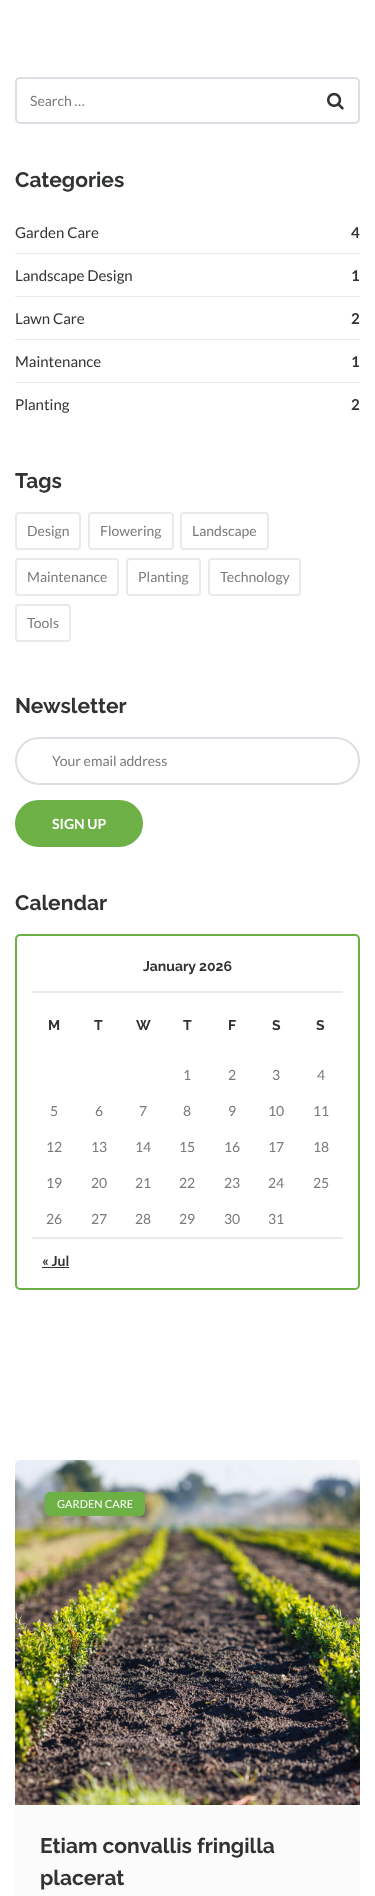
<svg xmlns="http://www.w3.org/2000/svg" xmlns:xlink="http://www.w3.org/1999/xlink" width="375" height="1896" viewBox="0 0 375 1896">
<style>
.cls-1{font:14px Lato;fill:#7a7a7a}
.cls-2{font:bold 21px Raleway;fill:#303233}
.cls-3{font:15px Lato;fill:#303233}
.cls-4{font:bold 15px Lato;fill:#303233}
.cls-5{font:bold 14px Lato;fill:#ffffff}
.cls-6{font:bold 14px Raleway;fill:#303233}
.cls-7{font:bold 14px Lato;fill:#303233}
.cls-8{font:11px Lato;fill:#ffffff}
</style>
<rect width="100%" height="100%" fill="#ffffff"/>
<rect fill="none" stroke="#dedde3" stroke-width="2" x="16" y="78" width="343" height="45" rx="4"/>
<image xlink:href="image0.png" x="327" y="92" width="17" height="18"/>
<rect fill="#eaeaea" x="15" y="253" width="345" height="1"/>
<rect fill="#eaeaea" x="15" y="296" width="345" height="1"/>
<rect fill="#eaeaea" x="15" y="339" width="345" height="1"/>
<rect fill="#eaeaea" x="15" y="382" width="345" height="1"/>
<rect fill="none" stroke="#eaeaea" stroke-width="2" x="16" y="513" width="64" height="36" rx="3"/>
<rect fill="none" stroke="#eaeaea" stroke-width="2" x="89" y="513" width="84" height="36" rx="3"/>
<rect fill="none" stroke="#eaeaea" stroke-width="2" x="181" y="513" width="87" height="36" rx="3"/>
<rect fill="none" stroke="#eaeaea" stroke-width="2" x="16" y="559" width="102" height="36" rx="3"/>
<rect fill="none" stroke="#eaeaea" stroke-width="2" x="127" y="559" width="73" height="36" rx="3"/>
<rect fill="none" stroke="#eaeaea" stroke-width="2" x="209" y="559" width="91" height="36" rx="3"/>
<rect fill="none" stroke="#eaeaea" stroke-width="2" x="16" y="605" width="54" height="36" rx="3"/>
<rect fill="none" stroke="#dedde3" stroke-width="2" x="16" y="738" width="343" height="46" rx="23"/>
<rect fill="#6db046" stroke="#6db046" stroke-width="2" x="16" y="801" width="126" height="45" rx="22.5"/>
<rect fill="none" stroke="#6db046" stroke-width="2" x="16" y="935" width="343" height="354" rx="4"/>
<rect fill="#eaeaea" x="32" y="991" width="311" height="2"/>
<rect fill="#eaeaea" x="32" y="1237" width="311" height="2"/>
<rect fill="#303233" x="42" y="1267" width="27" height="1"/>
<rect fill="#fbfbfb" x="15" y="1460" width="345" height="436"/>
<image xlink:href="image1.png" x="15" y="1460" width="345" height="345"/>
<rect fill="#6db046" x="45" y="1492" width="100" height="24" rx="5"/>
<text class="cls-1" x="30" y="106">Search …</text>
<text class="cls-2" x="15" y="187">Categories</text>
<text class="cls-3" x="15" y="238">Garden Care</text>
<text class="cls-4" x="351" y="238">4</text>
<text class="cls-3" x="15" y="281">Landscape Design</text>
<text class="cls-4" x="351" y="281">1</text>
<text class="cls-3" x="15" y="324">Lawn Care</text>
<text class="cls-4" x="351" y="324">2</text>
<text class="cls-3" x="15" y="367">Maintenance</text>
<text class="cls-4" x="351" y="367">1</text>
<text class="cls-3" x="15" y="410">Planting</text>
<text class="cls-4" x="351" y="410">2</text>
<text class="cls-2" x="15" y="488">Tags</text>
<text class="cls-1" x="27" y="536">Design</text>
<text class="cls-1" x="100" y="536">Flowering</text>
<text class="cls-1" x="192" y="536">Landscape</text>
<text class="cls-1" x="27" y="582">Maintenance</text>
<text class="cls-1" x="138" y="582">Planting</text>
<text class="cls-1" x="220" y="582">Technology</text>
<text class="cls-1" x="27" y="628">Tools</text>
<text class="cls-2" x="15" y="713">Newsletter</text>
<text class="cls-1" x="52" y="766">Your email address</text>
<text class="cls-5" x="52" y="829">SIGN UP</text>
<text class="cls-2" x="15" y="910">Calendar</text>
<text class="cls-6" x="143" y="971">January 2026</text>
<text class="cls-6" x="48" y="1030">M</text>
<text class="cls-6" x="94" y="1030">T</text>
<text class="cls-6" x="136" y="1030">W</text>
<text class="cls-6" x="183" y="1030">T</text>
<text class="cls-6" x="228" y="1030">F</text>
<text class="cls-6" x="272" y="1030">S</text>
<text class="cls-6" x="316" y="1030">S</text>
<text class="cls-1" x="183" y="1080">1</text>
<text class="cls-1" x="228" y="1080">2</text>
<text class="cls-1" x="272" y="1080">3</text>
<text class="cls-1" x="317" y="1080">4</text>
<text class="cls-1" x="50" y="1116">5</text>
<text class="cls-1" x="95" y="1116">6</text>
<text class="cls-1" x="139" y="1116">7</text>
<text class="cls-1" x="183" y="1116">8</text>
<text class="cls-1" x="228" y="1116">9</text>
<text class="cls-1" x="268" y="1116">10</text>
<text class="cls-1" x="313" y="1116">11</text>
<text class="cls-1" x="46" y="1152">12</text>
<text class="cls-1" x="91" y="1152">13</text>
<text class="cls-1" x="135" y="1152">14</text>
<text class="cls-1" x="179" y="1152">15</text>
<text class="cls-1" x="224" y="1152">16</text>
<text class="cls-1" x="268" y="1152">17</text>
<text class="cls-1" x="313" y="1152">18</text>
<text class="cls-1" x="46" y="1188">19</text>
<text class="cls-1" x="91" y="1188">20</text>
<text class="cls-1" x="135" y="1188">21</text>
<text class="cls-1" x="179" y="1188">22</text>
<text class="cls-1" x="224" y="1188">23</text>
<text class="cls-1" x="268" y="1188">24</text>
<text class="cls-1" x="313" y="1188">25</text>
<text class="cls-1" x="46" y="1224">26</text>
<text class="cls-1" x="91" y="1224">27</text>
<text class="cls-1" x="135" y="1224">28</text>
<text class="cls-1" x="179" y="1224">29</text>
<text class="cls-1" x="224" y="1224">30</text>
<text class="cls-1" x="268" y="1224">31</text>
<text class="cls-7" x="42" y="1266">« Jul</text>
<text class="cls-8" x="57" y="1508">GARDEN CARE</text>
<text class="cls-2"><tspan x="40" y="1853">Etiam convallis fringilla</tspan><tspan x="40" y="1885">placerat</tspan></text>
</svg>
